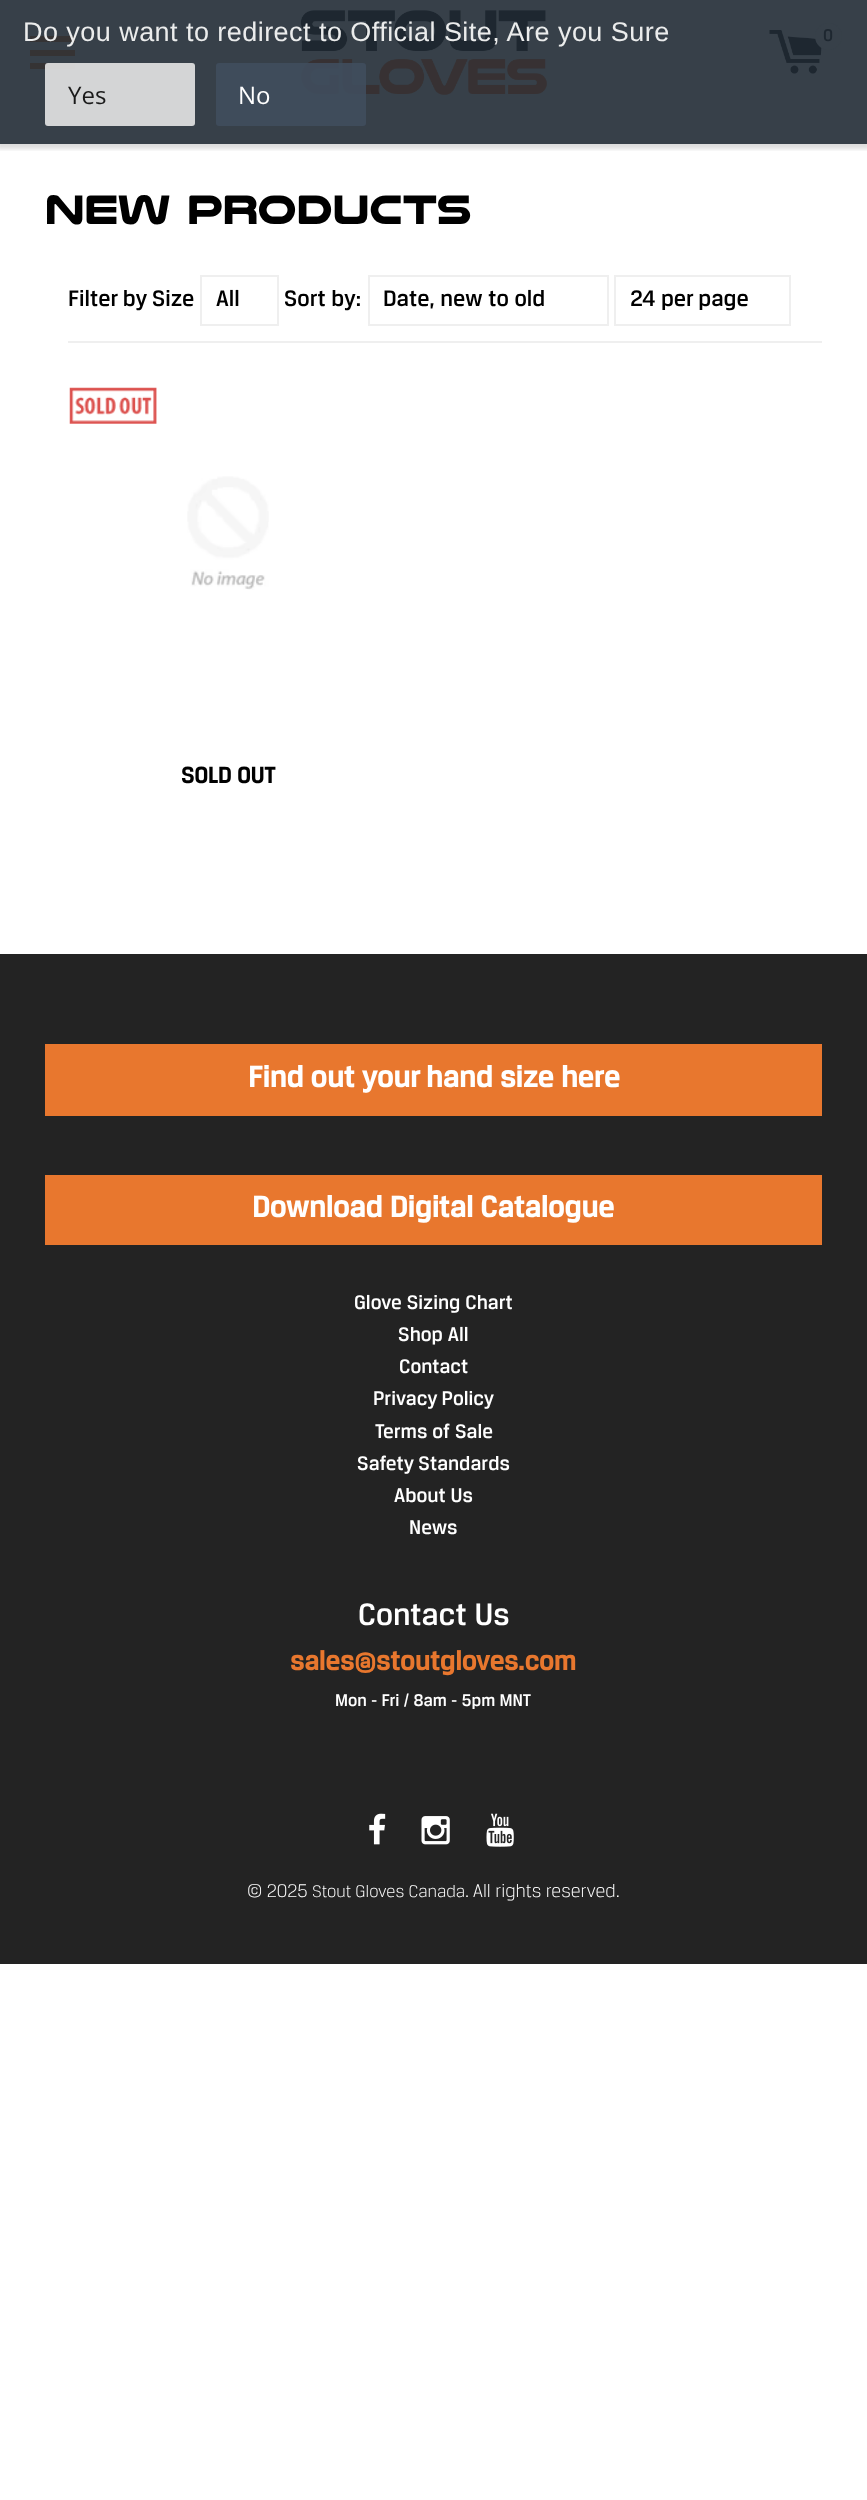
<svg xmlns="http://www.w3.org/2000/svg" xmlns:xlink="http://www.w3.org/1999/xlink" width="867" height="2500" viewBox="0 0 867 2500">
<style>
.cls-1{font:27px Liberation Sans;letter-spacing:0.45px;fill:#ebecec}
.cls-2{font:24px Open Sans;fill:#1a1a1a}
.cls-3{font:24px Open Sans;fill:#ffffff}
.cls-4{font:500 18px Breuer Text;fill:#1e2730}
.cls-5{font:bold 42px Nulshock;fill:#000000}
.cls-6{font:500 24px Breuer Text;fill:#000000}
.cls-7{font:bold 24px Breuer Text;fill:#000000}
.cls-8{font:bold 31.5px Breuer Text;fill:#ffffff}
.cls-9{font:500 21px Breuer Text;fill:#ffffff}
.cls-10{font:500 33px Breuer Text;fill:#ffffff}
.cls-11{font:bold 28.5px Breuer Text;fill:#e8772e}
.cls-12{font:500 18px Breuer Text;fill:#ffffff}
.cls-13{font:300 19.5px Breuer Text;fill:#ffffff}
.cls-14{font:300 18px Breuer Text;fill:#ffffff}
</style>
<defs>
<clipPath id="clip1"><rect x="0" y="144" width="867" height="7"/></clipPath>
</defs>
<rect width="100%" height="100%" fill="#ffffff"/>
<rect fill="#374049" x="0" y="0" width="867" height="144"/>
<rect fill="#353334" x="30" y="36" width="45" height="6"/>
<rect fill="#353334" x="30" y="50" width="45" height="6"/>
<rect fill="#353334" x="30" y="63" width="45" height="6"/>
<image xlink:href="image0.png" x="300" y="10" width="247" height="85"/>
<image xlink:href="image1.png" x="769" y="30" width="53" height="44"/>
<circle fill="#374049" cx="828.5" cy="36.5" r="13.5"/>
<g clip-path="url(#clip1)">
<rect fill="#1a1a1a" fill-opacity="0.15" filter="blur(2px)" x="-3" y="-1" width="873" height="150"/>
</g>
<rect fill="#e5e5e5" fill-opacity="0.9" x="45" y="63" width="150" height="63" rx="3"/>
<rect fill="#404e5d" fill-opacity="0.9" x="216" y="63" width="150" height="63" rx="3"/>
<rect fill="#efefef" x="68" y="341" width="754" height="2"/>
<rect fill="none" stroke="#efefef" stroke-width="2" x="201" y="276" width="77" height="49"/>
<rect fill="none" stroke="#efefef" stroke-width="2" x="369" y="276" width="239" height="49"/>
<rect fill="none" stroke="#efefef" stroke-width="2" x="615" y="276" width="175" height="49"/>
<image xlink:href="image2.png" x="69" y="387" width="88" height="37"/>
<image xlink:href="image3.png" x="187" y="476" width="82" height="114"/>
<rect fill="#232323" x="0" y="954" width="867" height="1010"/>
<rect fill="#e8772e" x="45" y="1044" width="777" height="72"/>
<rect fill="#e8772e" x="45" y="1175" width="777" height="70"/>
<image xlink:href="image4.png" x="369" y="1813" width="17" height="32"/>
<image xlink:href="image5.png" x="421" y="1816" width="29" height="29"/>
<image xlink:href="image6.png" x="486" y="1813" width="28" height="34"/>
<text class="cls-1" x="23" y="41">Do you want to redirect to Official Site, Are you Sure</text>
<text class="cls-2" x="68" y="104">Yes</text>
<text class="cls-3" x="238" y="104">No</text>
<text class="cls-4" x="823" y="41">0</text>
<text class="cls-5" x="45" y="224">New products</text>
<text class="cls-6" x="68" y="306">Filter by Size</text>
<text class="cls-6" x="216" y="306">All</text>
<text class="cls-6" x="284" y="306">Sort by:</text>
<text class="cls-6" x="383" y="306">Date, new to old</text>
<text class="cls-6" x="630" y="306">24 per page</text>
<text class="cls-7" x="181" y="783">SOLD OUT</text>
<text class="cls-8" x="248" y="1087">Find out your hand size here</text>
<text class="cls-8" x="252" y="1217">Download Digital Catalogue</text>
<text class="cls-9" x="354" y="1309">Glove Sizing Chart</text>
<text class="cls-9" x="398" y="1341">Shop All</text>
<text class="cls-9" x="399" y="1373">Contact</text>
<text class="cls-9" x="373" y="1405">Privacy Policy</text>
<text class="cls-9" x="375" y="1438">Terms of Sale</text>
<text class="cls-9" x="357" y="1470">Safety Standards</text>
<text class="cls-9" x="394" y="1502">About Us</text>
<text class="cls-9" x="409" y="1534">News</text>
<text class="cls-10" x="358" y="1625">Contact Us</text>
<text class="cls-11" x="290" y="1670">sales@stoutgloves.com</text>
<text class="cls-12" x="335" y="1706">Mon - Fri / 8am - 5pm MNT</text>
<text class="cls-13" x="247" y="1897">© 2025</text>
<text class="cls-14" x="312" y="1897">Stout Gloves Canada</text>
<text class="cls-13" x="465" y="1897">. All rights reserved.</text>
</svg>
